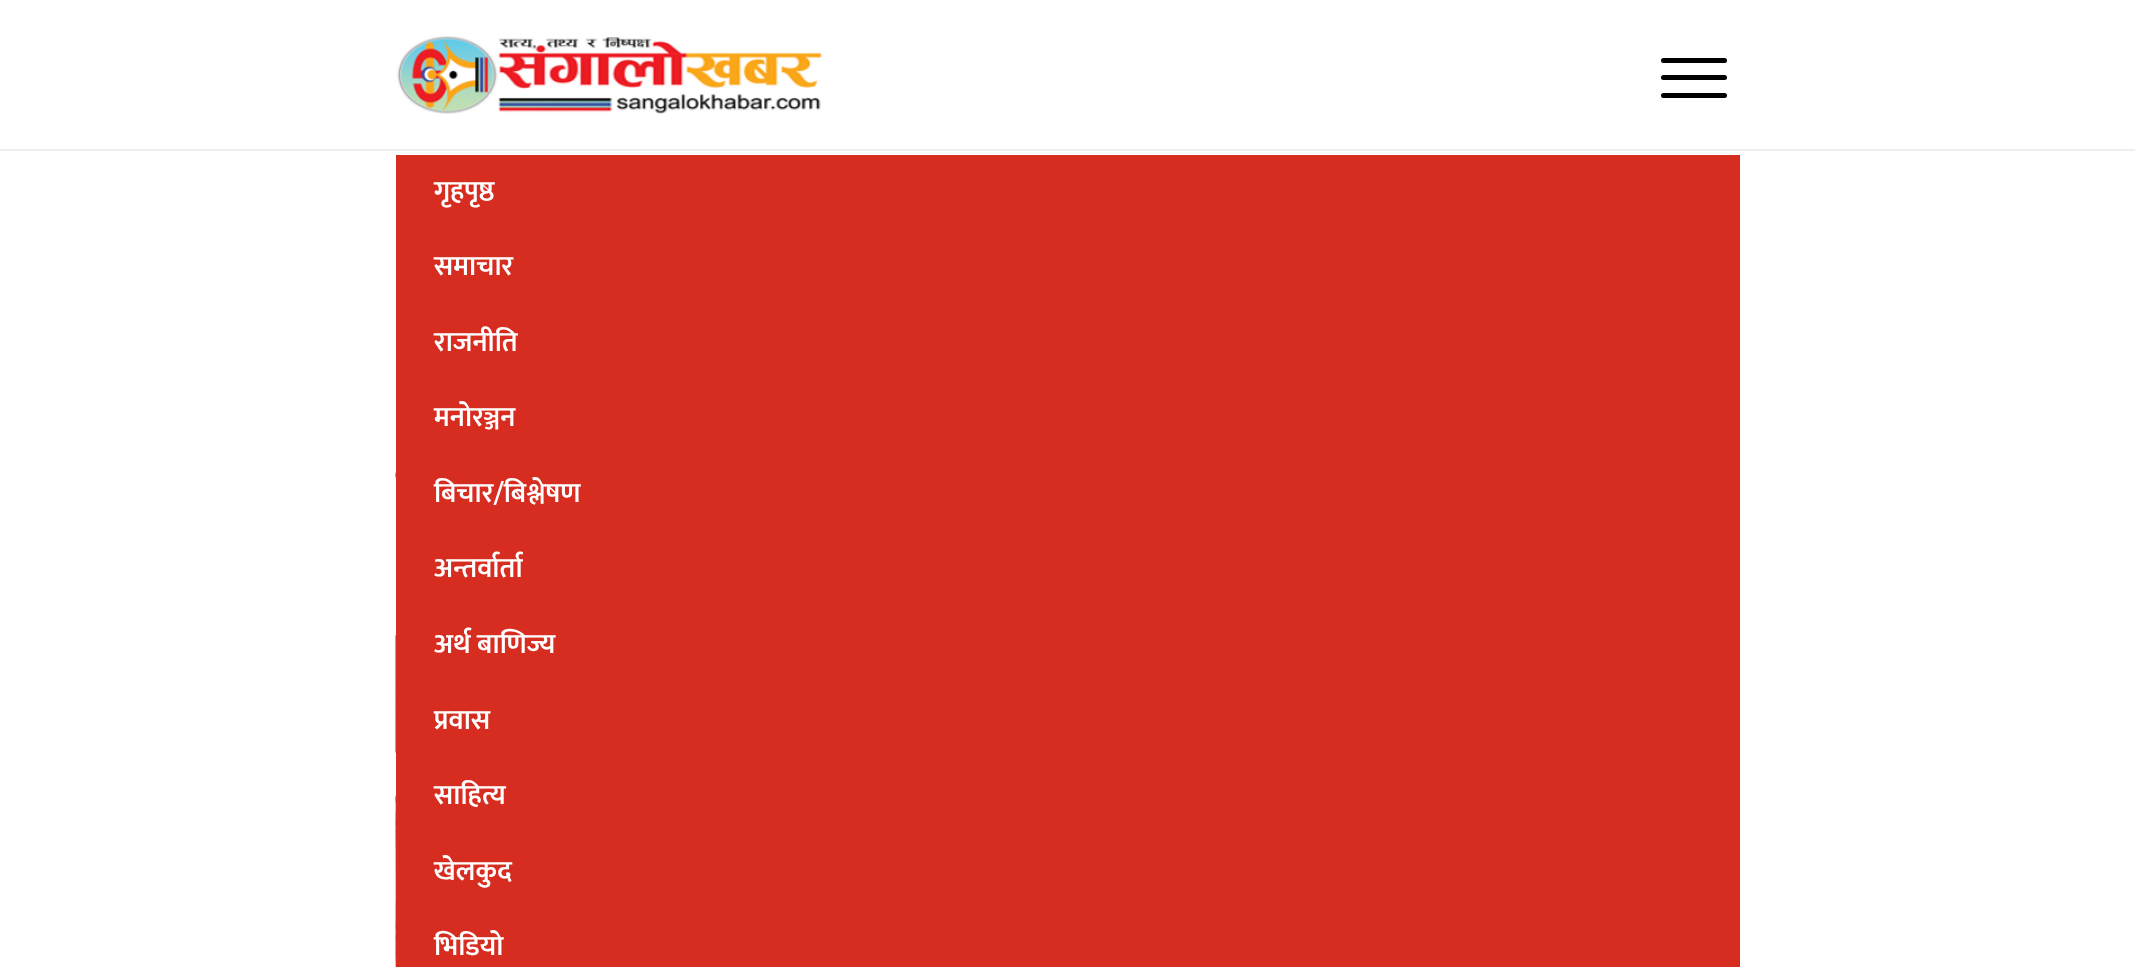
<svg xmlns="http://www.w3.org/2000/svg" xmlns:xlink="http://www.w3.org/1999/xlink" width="2135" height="967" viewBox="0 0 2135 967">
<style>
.cls-1{font:600 28px Ek Mukta;fill:#ffffff}
</style>
<rect width="100%" height="100%" fill="#ffffff"/>
<rect fill="#eeeeee" x="0" y="149" width="2135" height="2"/>
<image xlink:href="image0.png" x="397" y="36" width="426" height="78"/>
<rect fill="#000000" x="1661" y="58" width="66" height="5" rx="2.5"/>
<rect fill="#000000" x="1661" y="93" width="66" height="5" rx="2.5"/>
<rect fill="#000000" x="1661" y="75" width="66" height="5" rx="2.5"/>
<image xlink:href="image1.png" x="395" y="471" width="1" height="7"/>
<image xlink:href="image2.png" x="395" y="635" width="1" height="118"/>
<image xlink:href="image3.png" x="395" y="796" width="1" height="171"/>
<rect fill="#d62d20" x="396" y="155" width="1344" height="812"/>
<text class="cls-1" x="434" y="200">गृहपृष्ठ</text>
<text class="cls-1" x="434" y="275">समाचार</text>
<text class="cls-1" x="434" y="351">राजनीति</text>
<text class="cls-1" x="434" y="426">मनोरञ्जन</text>
<text class="cls-1" x="434" y="502">बिचार/बिश्लेषण</text>
<text class="cls-1" x="434" y="577">अन्तर्वार्ता</text>
<text class="cls-1" x="434" y="653">अर्थ बाणिज्य</text>
<text class="cls-1" x="434" y="729">प्रवास</text>
<text class="cls-1" x="434" y="804">साहित्य</text>
<text class="cls-1" x="434" y="880">खेलकुद</text>
<text class="cls-1" x="434" y="955">भिडियो</text>
</svg>
